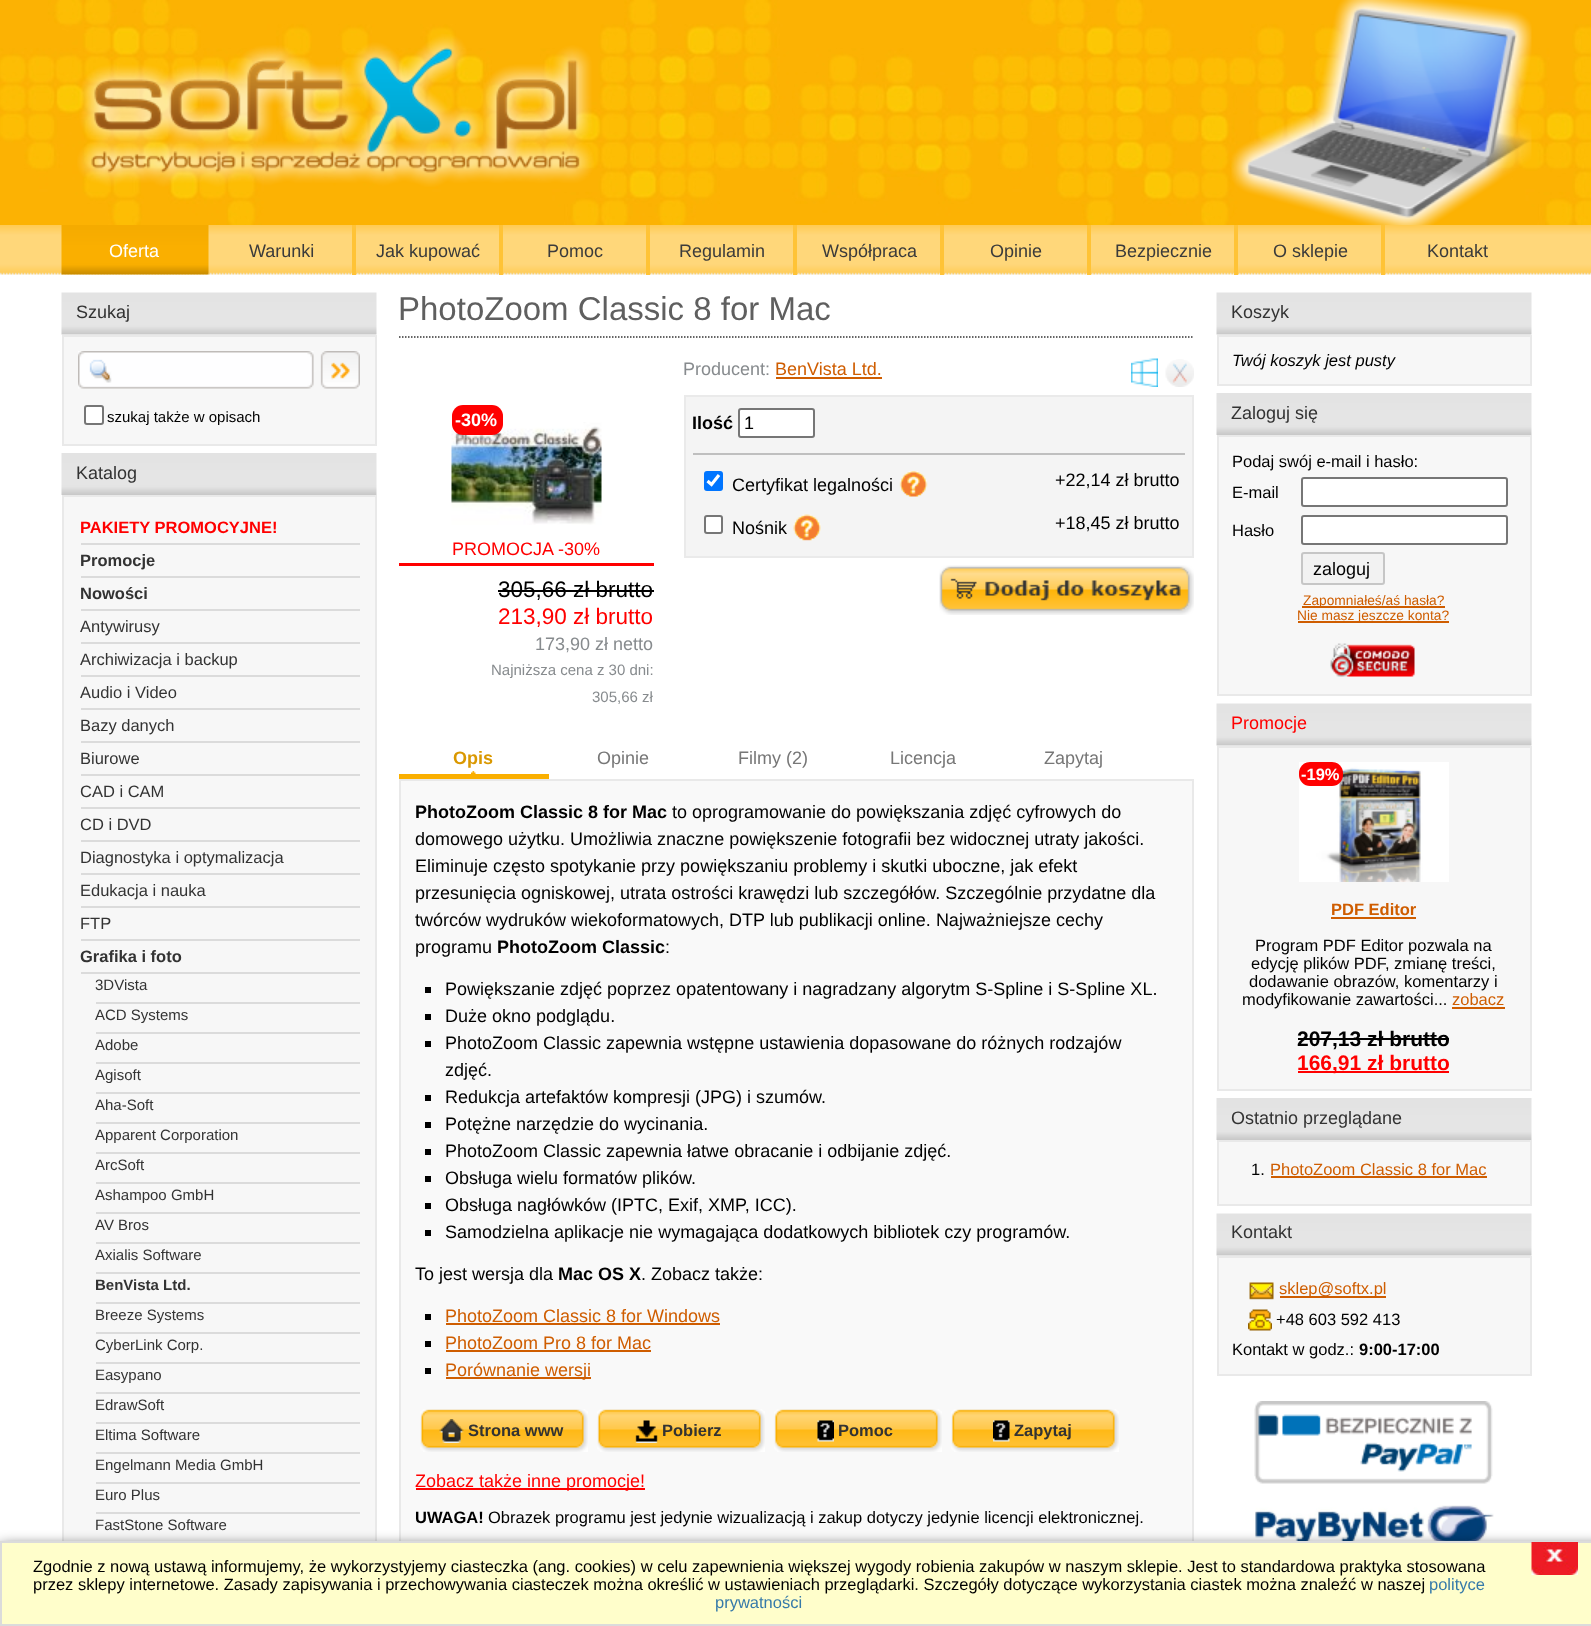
<svg xmlns="http://www.w3.org/2000/svg" xmlns:xlink="http://www.w3.org/1999/xlink" width="1591" height="1626" viewBox="0 0 1591 1626">
<style>
.cls-1{font:18px Liberation Sans;fill:#ffffff}
.cls-2{font:18px Liberation Sans;fill:#3b3b3b}
.cls-3{font:18px Liberation Sans;fill:#333333}
.cls-4{font:15px Liberation Sans;fill:#000000}
.cls-5{font:bold 16.5px Liberation Sans;fill:#ff0000}
.cls-6{font:bold 16.5px Liberation Sans;fill:#333333}
.cls-7{font:16.5px Liberation Sans;fill:#333333}
.cls-8{font:15px Liberation Sans;fill:#333333}
.cls-9{font:bold 15px Liberation Sans;fill:#333333}
.cls-10{font:33px Liberation Sans;fill:#5f5f5f}
.cls-11{font:bold 18px Liberation Sans;fill:#ffffff}
.cls-12{font:18px Liberation Sans;fill:#ff0000}
.cls-13{font:22.5px Liberation Sans;fill:#000000}
.cls-14{font:22.5px Liberation Sans;fill:#ff0000}
.cls-15{font:18px Liberation Sans;fill:#878b8e}
.cls-16{font:15px Liberation Sans;fill:#878b8e}
.cls-17{font:18px Liberation Sans;fill:#cf5d00}
.cls-18{font:bold 18px Liberation Sans;fill:#000000}
.cls-19{font:18px Liberation Sans;fill:#000000}
.cls-20{font:bold 18px Liberation Sans;fill:#da9800}
.cls-21{font:18px Liberation Sans;fill:#777777}
.cls-22{font:bold 16.5px Liberation Sans;fill:#000000}
.cls-23{font:16.5px Liberation Sans;fill:#000000}
.cls-24{font:italic 16.5px Liberation Sans;fill:#000000}
.cls-25{font:13.75px Liberation Sans;fill:#cf5d00}
.cls-26{font:bold 16.5px Liberation Sans;fill:#ffffff}
.cls-27{font:bold 16.5px Liberation Sans;fill:#cf5d00}
.cls-28{font:16.5px Liberation Sans;fill:#cf5d00}
.cls-29{font:bold 21px Liberation Sans;fill:#000000}
.cls-30{font:bold 21px Liberation Sans;fill:#ff0000}
.cls-31{font:16.5px Liberation Sans;fill:#367aa9}
</style>
<rect width="100%" height="100%" fill="#ffffff"/>
<image xlink:href="image0.png" x="0" y="0" width="1591" height="225"/>
<image xlink:href="image1.png" x="1231" y="0" width="301" height="225"/>
<image xlink:href="image2.png" x="77" y="34" width="517" height="153"/>
<image xlink:href="image3.png" x="0" y="225" width="1591" height="50"/>
<image xlink:href="image4.png" x="61" y="225" width="148" height="50"/>
<rect fill="#ffc336" x="352" y="225" width="4" height="50"/>
<rect fill="#ffc336" x="499" y="225" width="4" height="50"/>
<rect fill="#ffc336" x="646" y="225" width="4" height="50"/>
<rect fill="#ffc336" x="793" y="225" width="4" height="50"/>
<rect fill="#ffc336" x="940" y="225" width="4" height="50"/>
<rect fill="#ffc336" x="1087" y="225" width="4" height="50"/>
<rect fill="#ffc336" x="1234" y="225" width="4" height="50"/>
<rect fill="#ffc336" x="1381" y="225" width="4" height="50"/>
<image xlink:href="image5.png" x="61" y="292" width="316" height="43"/>
<rect fill="#f7f7f7" stroke="#e9e9e9" stroke-width="2" x="63" y="336" width="313" height="109"/>
<image xlink:href="image6.png" x="78" y="351" width="282" height="38"/>
<rect fill="#ffffff" stroke="#767676" stroke-width="2" x="85" y="406" width="18" height="18" rx="2"/>
<image xlink:href="image7.png" x="61" y="453" width="316" height="42"/>
<rect fill="#f7f7f7" x="64" y="497" width="311" height="1044"/>
<rect fill="none" stroke="#e9e9e9" stroke-width="2" x="63" y="496" width="313" height="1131"/>
<rect fill="#dbdbdb" x="81" y="543" width="279" height="2"/>
<rect fill="#dbdbdb" x="81" y="576" width="279" height="2"/>
<rect fill="#dbdbdb" x="81" y="609" width="279" height="2"/>
<rect fill="#dbdbdb" x="81" y="642" width="279" height="2"/>
<rect fill="#dbdbdb" x="81" y="675" width="279" height="2"/>
<rect fill="#dbdbdb" x="81" y="708" width="279" height="2"/>
<rect fill="#dbdbdb" x="81" y="741" width="279" height="2"/>
<rect fill="#dbdbdb" x="81" y="774" width="279" height="2"/>
<rect fill="#dbdbdb" x="81" y="807" width="279" height="2"/>
<rect fill="#dbdbdb" x="81" y="840" width="279" height="2"/>
<rect fill="#dbdbdb" x="81" y="873" width="279" height="2"/>
<rect fill="#dbdbdb" x="81" y="906" width="279" height="2"/>
<rect fill="#dbdbdb" x="81" y="939" width="279" height="2"/>
<rect fill="#dbdbdb" x="81" y="972" width="279" height="2"/>
<rect fill="#dbdbdb" x="96" y="1002" width="264" height="2"/>
<rect fill="#dbdbdb" x="96" y="1032" width="264" height="2"/>
<rect fill="#dbdbdb" x="96" y="1062" width="264" height="2"/>
<rect fill="#dbdbdb" x="96" y="1092" width="264" height="2"/>
<rect fill="#dbdbdb" x="96" y="1122" width="264" height="2"/>
<rect fill="#dbdbdb" x="96" y="1152" width="264" height="2"/>
<rect fill="#dbdbdb" x="96" y="1182" width="264" height="2"/>
<rect fill="#dbdbdb" x="96" y="1212" width="264" height="2"/>
<rect fill="#dbdbdb" x="96" y="1242" width="264" height="2"/>
<rect fill="#dbdbdb" x="96" y="1272" width="264" height="2"/>
<rect fill="#dbdbdb" x="96" y="1302" width="264" height="2"/>
<rect fill="#dbdbdb" x="96" y="1332" width="264" height="2"/>
<rect fill="#dbdbdb" x="96" y="1362" width="264" height="2"/>
<rect fill="#dbdbdb" x="96" y="1392" width="264" height="2"/>
<rect fill="#dbdbdb" x="96" y="1422" width="264" height="2"/>
<rect fill="#dbdbdb" x="96" y="1452" width="264" height="2"/>
<rect fill="#dbdbdb" x="96" y="1482" width="264" height="2"/>
<rect fill="#dbdbdb" x="96" y="1512" width="264" height="2"/>
<path fill="none" stroke="#333333" stroke-width="1.5" stroke-dasharray="1.5 1.5" d="M399 337H1194"/>
<image xlink:href="image8.png" x="451" y="422" width="151" height="103"/>
<rect fill="#ff0000" x="452" y="405" width="51" height="30" rx="11"/>
<rect fill="#ff0000" x="399" y="563" width="255" height="3"/>
<rect fill="#000000" x="498" y="590" width="156" height="2"/>
<rect fill="#cf5d00" x="776" y="377" width="106" height="2"/>
<image xlink:href="image9.png" x="1131" y="358" width="27" height="29"/>
<image xlink:href="image10.png" x="1165" y="359" width="29" height="28"/>
<rect fill="#f4f4f4" stroke="#eaeaea" stroke-width="2" x="685" y="396" width="508" height="161"/>
<rect fill="#ffffff" stroke="#767676" stroke-width="2" x="739" y="409" width="75" height="28" rx="2"/>
<rect fill="#bfbfbf" x="693" y="453" width="492" height="2"/>
<rect fill="#0075ff" x="704" y="471" width="19" height="20" rx="3"/>
<path fill="none" stroke="#ffffff" stroke-width="3.1" d="M707.5 481L711.5 484.5L719 475"/>
<image xlink:href="image11.png" x="899" y="471" width="29" height="26"/>
<rect fill="#ffffff" stroke="#767676" stroke-width="2" x="705" y="516" width="17" height="17" rx="2"/>
<image xlink:href="image12.png" x="793" y="514" width="28" height="27"/>
<image xlink:href="image13.png" x="939" y="565" width="255" height="50"/>
<image xlink:href="image14.png" x="471" y="771" width="5" height="3"/>
<rect fill="#faaf00" x="399" y="774" width="150" height="5"/>
<rect fill="#f9f9f9" x="401" y="781" width="791" height="760"/>
<rect fill="none" stroke="#e9e9e9" stroke-width="2" x="400" y="780" width="793" height="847"/>
<rect fill="#000000" x="425" y="987" width="6" height="6"/>
<rect fill="#000000" x="425" y="1014" width="6" height="6"/>
<rect fill="#000000" x="425" y="1041" width="6" height="6"/>
<rect fill="#000000" x="425" y="1095" width="6" height="6"/>
<rect fill="#000000" x="425" y="1122" width="6" height="6"/>
<rect fill="#000000" x="425" y="1149" width="6" height="6"/>
<rect fill="#000000" x="425" y="1176" width="6" height="6"/>
<rect fill="#000000" x="425" y="1203" width="6" height="6"/>
<rect fill="#000000" x="425" y="1230" width="6" height="6"/>
<rect fill="#000000" x="425" y="1314" width="6" height="6"/>
<rect fill="#cf5d00" x="446" y="1323" width="274" height="2"/>
<rect fill="#000000" x="425" y="1341" width="6" height="6"/>
<rect fill="#cf5d00" x="446" y="1350" width="205" height="2"/>
<rect fill="#000000" x="425" y="1368" width="6" height="6"/>
<rect fill="#cf5d00" x="446" y="1377" width="145" height="2"/>
<image xlink:href="image15.png" x="420" y="1409" width="168" height="43"/>
<image xlink:href="image16.png" x="439" y="1419" width="25" height="24"/>
<image xlink:href="image15.png" x="597" y="1409" width="168" height="43"/>
<image xlink:href="image17.png" x="635" y="1420" width="23" height="23"/>
<image xlink:href="image18.png" x="774" y="1409" width="168" height="43"/>
<image xlink:href="image19.png" x="817" y="1420" width="17" height="22"/>
<image xlink:href="image18.png" x="951" y="1409" width="168" height="43"/>
<image xlink:href="image20.png" x="993" y="1420" width="17" height="22"/>
<rect fill="#ff0000" x="416" y="1488" width="229" height="2"/>
<image xlink:href="image5.png" x="1216" y="292" width="316" height="43"/>
<rect fill="#f7f7f7" stroke="#e9e9e9" stroke-width="2" x="1218" y="336" width="313" height="49"/>
<image xlink:href="image7.png" x="1216" y="393" width="316" height="42"/>
<rect fill="#f7f7f7" stroke="#e9e9e9" stroke-width="2" x="1218" y="436" width="313" height="259"/>
<rect fill="#ffffff" stroke="#767676" stroke-width="2" x="1302" y="478" width="205" height="28" rx="2"/>
<rect fill="#ffffff" stroke="#767676" stroke-width="2" x="1302" y="516" width="205" height="28" rx="2"/>
<rect fill="#f2f2f2" stroke="#c6c6c6" stroke-width="2" x="1302" y="553" width="82" height="31" rx="2"/>
<rect fill="#cf5d00" x="1302" y="606" width="143" height="2"/>
<rect fill="#cf5d00" x="1298" y="621" width="151" height="2"/>
<image xlink:href="image21.png" x="1330" y="643" width="85" height="34"/>
<image xlink:href="image5.png" x="1216" y="703" width="316" height="43"/>
<rect fill="#f7f7f7" stroke="#e9e9e9" stroke-width="2" x="1218" y="747" width="313" height="343"/>
<image xlink:href="image22.png" x="1299" y="762" width="150" height="120"/>
<rect fill="#ff0000" x="1299" y="762" width="44" height="24" rx="11"/>
<rect fill="#cf5d00" x="1331" y="917" width="85" height="2"/>
<rect fill="#cf5d00" x="1452" y="1007" width="53" height="2"/>
<rect fill="#000000" x="1298" y="1038" width="151" height="2"/>
<rect fill="#ff0000" x="1298" y="1071" width="151" height="2"/>
<image xlink:href="image7.png" x="1216" y="1098" width="316" height="42"/>
<rect fill="#f7f7f7" stroke="#e9e9e9" stroke-width="2" x="1218" y="1141" width="313" height="64"/>
<rect fill="#cf5d00" x="1271" y="1176" width="216" height="2"/>
<image xlink:href="image5.png" x="1216" y="1213" width="316" height="43"/>
<rect fill="#f7f7f7" stroke="#e9e9e9" stroke-width="2" x="1218" y="1257" width="313" height="118"/>
<image xlink:href="image23.png" x="1249" y="1282" width="25" height="18"/>
<rect fill="#cf5d00" x="1280" y="1296" width="106" height="2"/>
<image xlink:href="image24.png" x="1248" y="1309" width="24" height="22"/>
<image xlink:href="image25.png" x="1254" y="1401" width="239" height="83"/>
<image xlink:href="image26.png" x="1255" y="1505" width="239" height="36"/>
<rect fill="#000000" filter="blur(7.5px)" x="0" y="1548" width="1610" height="71"/>
<rect fill="#fffecb" stroke="#dbdbdb" stroke-width="2" x="1" y="1542" width="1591" height="83"/>
<image xlink:href="image27.png" x="1531" y="1542" width="47" height="33"/>
<text class="cls-1" x="109" y="257">Oferta</text>
<text class="cls-2" x="249" y="257">Warunki</text>
<text class="cls-2" x="376" y="257">Jak kupować</text>
<text class="cls-2" x="547" y="257">Pomoc</text>
<text class="cls-2" x="679" y="257">Regulamin</text>
<text class="cls-2" x="822" y="257">Współpraca</text>
<text class="cls-2" x="990" y="257">Opinie</text>
<text class="cls-2" x="1115" y="257">Bezpiecznie</text>
<text class="cls-2" x="1273" y="257">O sklepie</text>
<text class="cls-2" x="1427" y="257">Kontakt</text>
<text class="cls-3" x="76" y="318">Szukaj</text>
<text class="cls-4" x="107" y="422">szukaj także w opisach</text>
<text class="cls-3" x="76" y="479">Katalog</text>
<text class="cls-5" x="80" y="533">PAKIETY PROMOCYJNE!</text>
<text class="cls-6" x="80" y="566">Promocje</text>
<text class="cls-6" x="80" y="599">Nowości</text>
<text class="cls-7" x="80" y="632">Antywirusy</text>
<text class="cls-7" x="80" y="665">Archiwizacja i backup</text>
<text class="cls-7" x="80" y="698">Audio i Video</text>
<text class="cls-7" x="80" y="731">Bazy danych</text>
<text class="cls-7" x="80" y="764">Biurowe</text>
<text class="cls-7" x="80" y="797">CAD i CAM</text>
<text class="cls-7" x="80" y="830">CD i DVD</text>
<text class="cls-7" x="80" y="863">Diagnostyka i optymalizacja</text>
<text class="cls-7" x="80" y="896">Edukacja i nauka</text>
<text class="cls-7" x="80" y="929">FTP</text>
<text class="cls-6" x="80" y="962">Grafika i foto</text>
<text class="cls-8" x="95" y="990">3DVista</text>
<text class="cls-8" x="95" y="1020">ACD Systems</text>
<text class="cls-8" x="95" y="1050">Adobe</text>
<text class="cls-8" x="95" y="1080">Agisoft</text>
<text class="cls-8" x="95" y="1110">Aha-Soft</text>
<text class="cls-8" x="95" y="1140">Apparent Corporation</text>
<text class="cls-8" x="95" y="1170">ArcSoft</text>
<text class="cls-8" x="95" y="1200">Ashampoo GmbH</text>
<text class="cls-8" x="95" y="1230">AV Bros</text>
<text class="cls-8" x="95" y="1260">Axialis Software</text>
<text class="cls-9" x="95" y="1290">BenVista Ltd.</text>
<text class="cls-8" x="95" y="1320">Breeze Systems</text>
<text class="cls-8" x="95" y="1350">CyberLink Corp.</text>
<text class="cls-8" x="95" y="1380">Easypano</text>
<text class="cls-8" x="95" y="1410">EdrawSoft</text>
<text class="cls-8" x="95" y="1440">Eltima Software</text>
<text class="cls-8" x="95" y="1470">Engelmann Media GmbH</text>
<text class="cls-8" x="95" y="1500">Euro Plus</text>
<text class="cls-8" x="95" y="1530">FastStone Software</text>
<text class="cls-10" x="398" y="320">PhotoZoom Classic 8 for Mac</text>
<text class="cls-11" x="455" y="426">-30%</text>
<text class="cls-12" x="452" y="555">PROMOCJA -30%</text>
<text class="cls-13" x="498" y="597">305,66 zł brutto</text>
<text class="cls-14" x="498" y="624">213,90 zł brutto</text>
<text class="cls-15" x="535" y="650">173,90 zł netto</text>
<text class="cls-16" x="491" y="675">Najniższa cena z 30 dni:</text>
<text class="cls-16" x="592" y="702">305,66 zł</text>
<text class="cls-15" x="683" y="375">Producent:</text>
<text class="cls-17" x="775" y="375">BenVista Ltd.</text>
<text class="cls-18" x="692" y="429">Ilość</text>
<text class="cls-19" x="744" y="429">1</text>
<text class="cls-19" x="732" y="491">Certyfikat legalności</text>
<text class="cls-19" x="1055" y="486">+22,14 zł brutto</text>
<text class="cls-19" x="732" y="534">Nośnik</text>
<text class="cls-19" x="1055" y="529">+18,45 zł brutto</text>
<text class="cls-20" x="453" y="764">Opis</text>
<text class="cls-21" x="597" y="764">Opinie</text>
<text class="cls-21" x="738" y="764">Filmy (2)</text>
<text class="cls-21" x="890" y="764">Licencja</text>
<text class="cls-21" x="1044" y="764">Zapytaj</text>
<text class="cls-18" x="415" y="818">PhotoZoom Classic 8 for Mac</text>
<text class="cls-19" x="672" y="818">to oprogramowanie do powiększania zdjęć cyfrowych do</text>
<text class="cls-19"><tspan x="415" y="845">domowego użytku. Umożliwia znaczne powiększenie fotografii bez widocznej utraty jakości.</tspan><tspan x="415" y="872">Eliminuje często spotykanie przy powiększaniu problemy i skutki uboczne, jak efekt</tspan><tspan x="415" y="899">przesunięcia ogniskowej, utrata ostrości krawędzi lub szczegółów. Szczególnie przydatne dla</tspan><tspan x="415" y="926">twórców wydruków wiekoformatowych, DTP lub publikacji online. Najważniejsze cechy</tspan><tspan x="415" y="953">programu</tspan></text>
<text class="cls-18" x="497" y="953">PhotoZoom Classic</text>
<text class="cls-19" x="665" y="953">:</text>
<text class="cls-19"><tspan x="445" y="995">Powiększanie zdjęć poprzez opatentowany i nagradzany algorytm S-Spline i S-Spline XL.</tspan><tspan x="445" y="1022">Duże okno podglądu.</tspan><tspan x="445" y="1049">PhotoZoom Classic zapewnia wstępne ustawienia dopasowane do różnych rodzajów</tspan><tspan x="445" y="1076">zdjęć.</tspan><tspan x="445" y="1103">Redukcja artefaktów kompresji (JPG) i szumów.</tspan><tspan x="445" y="1130">Potężne narzędzie do wycinania.</tspan><tspan x="445" y="1157">PhotoZoom Classic zapewnia łatwe obracanie i odbijanie zdjęć.</tspan><tspan x="445" y="1184">Obsługa wielu formatów plików.</tspan><tspan x="445" y="1211">Obsługa nagłówków (IPTC, Exif, XMP, ICC).</tspan><tspan x="445" y="1238">Samodzielna aplikacje nie wymagająca dodatkowych bibliotek czy programów.</tspan></text>
<text class="cls-19" x="415" y="1280">To jest wersja dla</text>
<text class="cls-18" x="558" y="1280">Mac OS X</text>
<text class="cls-19" x="641" y="1280">. Zobacz także:</text>
<text class="cls-17"><tspan x="445" y="1322">PhotoZoom Classic 8 for Windows</tspan><tspan x="445" y="1349">PhotoZoom Pro 8 for Mac</tspan><tspan x="445" y="1376">Porównanie wersji</tspan></text>
<text class="cls-6" x="468" y="1436">Strona www</text>
<text class="cls-6" x="662" y="1436">Pobierz</text>
<text class="cls-6" x="838" y="1436">Pomoc</text>
<text class="cls-6" x="1014" y="1436">Zapytaj</text>
<text class="cls-12" x="415" y="1487">Zobacz także inne promocje!</text>
<text class="cls-22" x="415" y="1523">UWAGA!</text>
<text class="cls-23" x="488" y="1523">Obrazek programu jest jedynie wizualizacją i zakup dotyczy jedynie licencji elektronicznej.</text>
<text class="cls-3" x="1231" y="318">Koszyk</text>
<text class="cls-24" x="1232" y="366">Twój koszyk jest pusty</text>
<text class="cls-3" x="1231" y="419">Zaloguj się</text>
<text class="cls-23"><tspan x="1232" y="467">Podaj swój e-mail i hasło:</tspan><tspan x="1232" y="498">E-mail</tspan></text>
<text class="cls-23" x="1232" y="536">Hasło</text>
<text class="cls-19" x="1313" y="575">zaloguj</text>
<text class="cls-25" x="1303" y="605">Zapomniałeś/aś hasła?</text>
<text class="cls-25" x="1297" y="620">Nie masz jeszcze konta?</text>
<text class="cls-12" x="1231" y="729">Promocje</text>
<text class="cls-26" x="1301" y="780">-19%</text>
<text class="cls-27" x="1331" y="915">PDF Editor</text>
<text class="cls-23" x="1255" y="951">Program PDF Editor pozwala na</text>
<text class="cls-23" x="1251" y="969">edycję plików PDF, zmianę treści,</text>
<text class="cls-23" x="1249" y="987">dodawanie obrazów, komentarzy i</text>
<text class="cls-23" x="1242" y="1005">modyfikowanie zawartości...</text>
<text class="cls-28" x="1452" y="1005">zobacz</text>
<text class="cls-29" x="1297" y="1046">207,13 zł brutto</text>
<text class="cls-30" x="1297" y="1070">166,91 zł brutto</text>
<text class="cls-3" x="1231" y="1124">Ostatnio przeglądane</text>
<text class="cls-23" x="1251" y="1175">1.</text>
<text class="cls-28" x="1270" y="1175">PhotoZoom Classic 8 for Mac</text>
<text class="cls-3" x="1231" y="1238">Kontakt</text>
<text class="cls-28" x="1279" y="1294">sklep@softx.pl</text>
<text class="cls-23" x="1276" y="1325">+48 603 592 413</text>
<text class="cls-23" x="1232" y="1355">Kontakt w godz.:</text>
<text class="cls-22" x="1359" y="1355">9:00-17:00</text>
<text class="cls-23"><tspan x="33" y="1572">Zgodnie z nową ustawą informujemy, że wykorzystyjemy ciasteczka (ang. cookies) w celu zapewnienia większej wygody robienia zakupów w naszym sklepie. Jest to standardowa praktyka stosowana</tspan><tspan x="33" y="1590">przez sklepy internetowe. Zasady zapisywania i przechowywania ciasteczek można określić w ustawieniach przeglądarki. Szczegóły dotyczące wykorzystania ciastek można znaleźć w naszej</tspan></text>
<text class="cls-31" x="1429" y="1590">polityce</text>
<text class="cls-31" x="715" y="1608">prywatności</text>
</svg>
